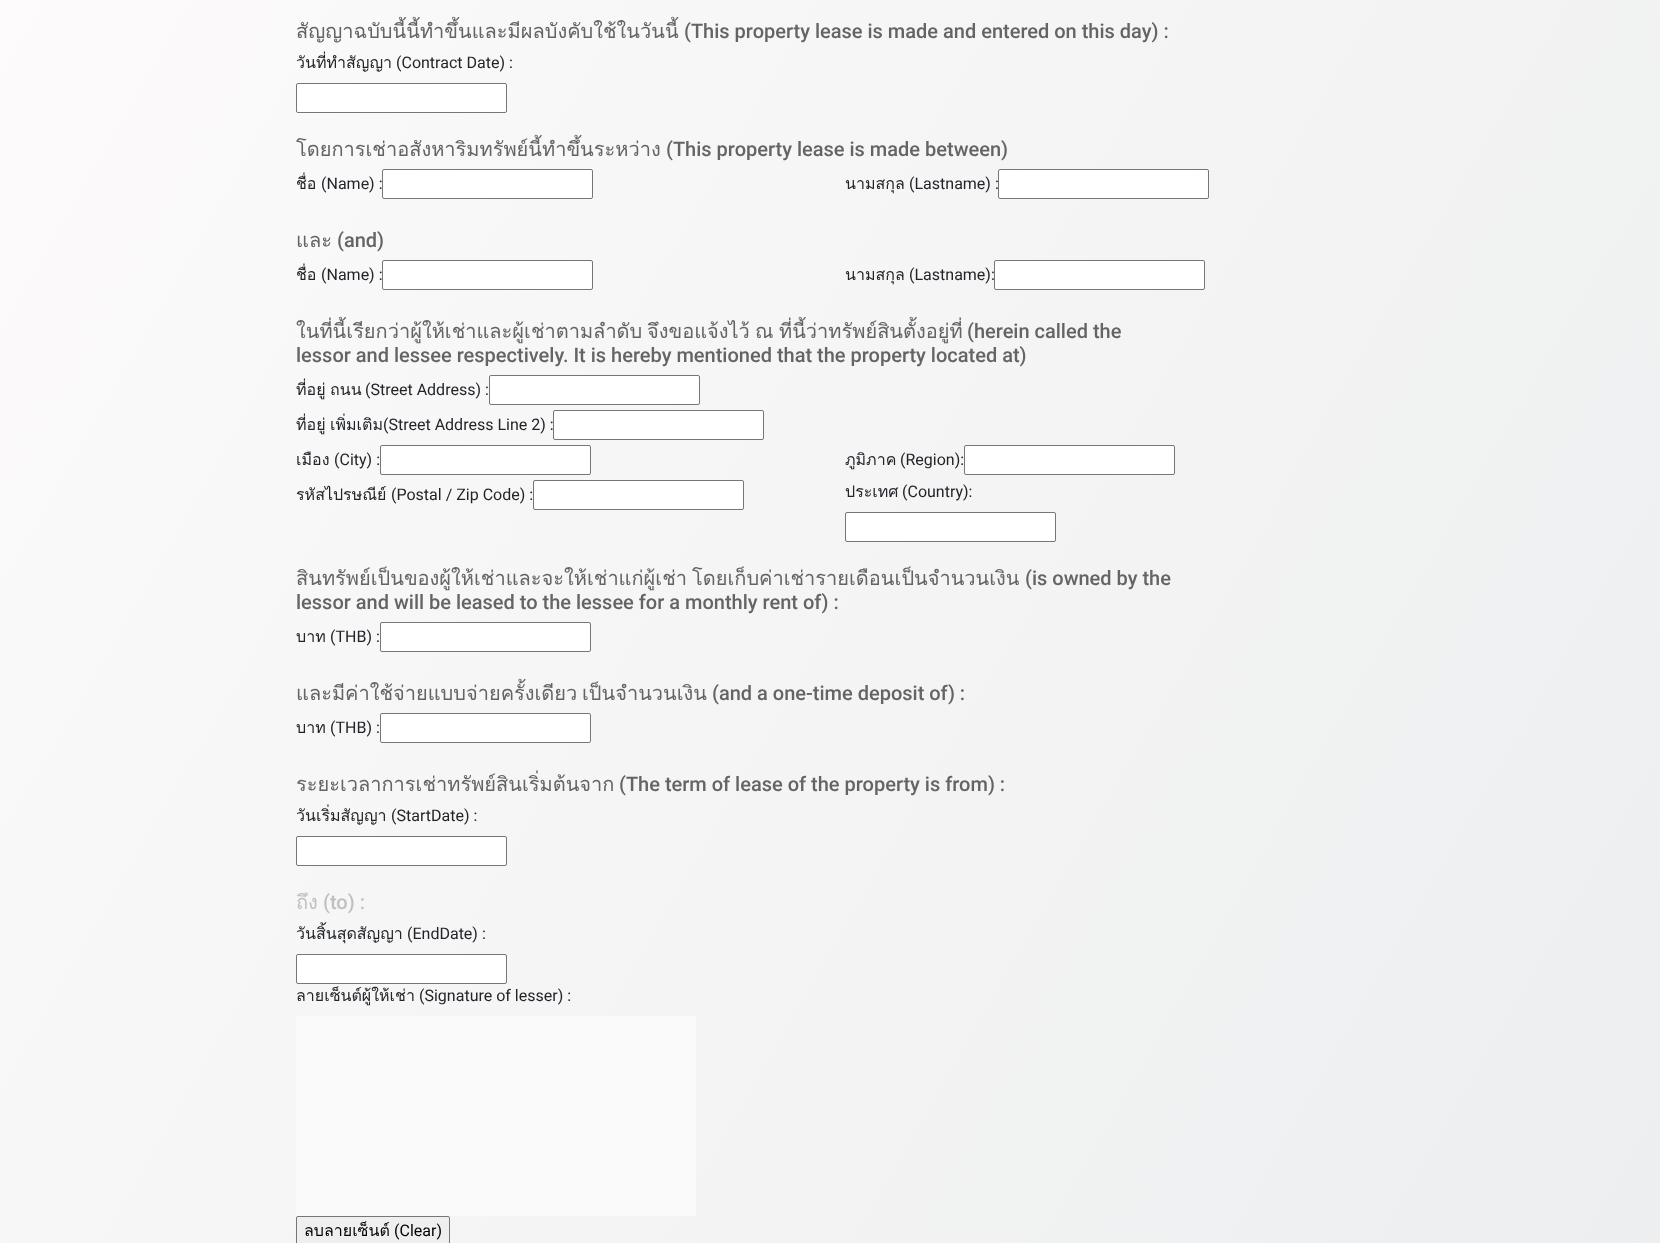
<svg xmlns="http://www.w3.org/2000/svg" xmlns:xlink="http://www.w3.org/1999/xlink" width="1660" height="1243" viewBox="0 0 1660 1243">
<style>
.cls-1{font:20px Loma;fill:#646464}
.cls-2{font:500 20px Roboto;fill:#646464}
.cls-3{font:16px Loma;fill:#212529}
.cls-4{font:16px Roboto;fill:#212529}
.cls-5{font:20px Loma;fill:#c0c0c0}
.cls-6{font:500 20px Roboto;fill:#c0c0c0}
.cls-7{font:16px Loma;fill:#000000}
.cls-8{font:16px Roboto;fill:#000000}
</style>
<defs>
<linearGradient id="g1" gradientUnits="userSpaceOnUse" x1="-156" y1="218" x2="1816" y2="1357"><stop offset="0" stop-color="#fdfbfb"/><stop offset="1" stop-color="#ebedee"/></linearGradient>
</defs>
<rect width="100%" height="100%" fill="#ffffff"/>
<rect fill="url(#g1)" x="0" y="0" width="1660" height="1243"/>
<rect fill="#ffffff" stroke="#767676" x="296.5" y="83.5" width="210" height="29" rx="1.5"/>
<rect fill="#ffffff" stroke="#767676" x="382.5" y="169.5" width="210" height="29" rx="1.5"/>
<rect fill="#ffffff" stroke="#767676" x="998.5" y="169.5" width="210" height="29" rx="1.5"/>
<rect fill="#ffffff" stroke="#767676" x="382.5" y="260.5" width="210" height="29" rx="1.5"/>
<rect fill="#ffffff" stroke="#767676" x="994.5" y="260.5" width="210" height="29" rx="1.5"/>
<rect fill="#ffffff" stroke="#767676" x="489.5" y="375.5" width="210" height="29" rx="1.5"/>
<rect fill="#ffffff" stroke="#767676" x="553.5" y="410.5" width="210" height="29" rx="1.5"/>
<rect fill="#ffffff" stroke="#767676" x="380.5" y="445.5" width="210" height="29" rx="1.5"/>
<rect fill="#ffffff" stroke="#767676" x="964.5" y="445.5" width="210" height="29" rx="1.5"/>
<rect fill="#ffffff" stroke="#767676" x="533.5" y="480.5" width="210" height="29" rx="1.5"/>
<rect fill="#ffffff" stroke="#767676" x="845.5" y="512.5" width="210" height="29" rx="1.5"/>
<rect fill="#ffffff" stroke="#767676" x="380.5" y="622.5" width="210" height="29" rx="1.5"/>
<rect fill="#ffffff" stroke="#767676" x="380.5" y="713.5" width="210" height="29" rx="1.5"/>
<rect fill="#ffffff" stroke="#767676" x="296.5" y="836.5" width="210" height="29" rx="1.5"/>
<rect fill="#ffffff" stroke="#767676" x="296.5" y="954.5" width="210" height="29" rx="1.5"/>
<rect fill="#fafafa" x="296" y="1016" width="400" height="200"/>
<rect fill="#efefef" stroke="#767676" x="296.5" y="1216.5" width="153" height="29" rx="1.5"/>
<text class="cls-1" x="296" y="38">สัญญาฉบับนี้นี้ทำขึ้นและมีผลบังคับใช้ในวันนี้</text>
<text class="cls-2" x="684" y="38">(This property lease is made and entered on this day) :</text>
<text class="cls-3" x="296" y="68">วันที่ทำสัญญา</text>
<text class="cls-4" x="396" y="68">(Contract Date) :</text>
<text class="cls-1" x="296" y="156">โดยการเช่าอสังหาริมทรัพย์นี้ทำขึ้นระหว่าง</text>
<text class="cls-2" x="666" y="156">(This property lease is made between)</text>
<text class="cls-3" x="296" y="189">ชื่อ</text>
<text class="cls-4" x="321" y="189">(Name) :</text>
<text class="cls-3" x="845" y="189">นามสกุล</text>
<text class="cls-4" x="909" y="189">(Lastname) :</text>
<text class="cls-1" x="296" y="247">และ</text>
<text class="cls-2" x="337" y="247">(and)</text>
<text class="cls-3" x="296" y="280">ชื่อ</text>
<text class="cls-4" x="321" y="280">(Name) :</text>
<text class="cls-3" x="845" y="280">นามสกุล</text>
<text class="cls-4" x="909" y="280">(Lastname):</text>
<text class="cls-1" x="296" y="338">ในที่นี้เรียกว่าผู้ให้เช่าและผู้เช่าตามลำดับ</text>
<text class="cls-1" x="647" y="338">จึงขอแจ้งไว้</text>
<text class="cls-1" x="755" y="338">ณ</text>
<text class="cls-1" x="779" y="338">ที่นี้ว่าทรัพย์สินตั้งอยู่ที่</text>
<text class="cls-2" x="967" y="338">(herein called the</text>
<text class="cls-2" x="296" y="362">lessor and lessee respectively. It is hereby mentioned that the property located at)</text>
<text class="cls-3" x="296" y="395">ที่อยู่</text>
<text class="cls-3" x="330" y="395">ถนน</text>
<text class="cls-4" x="365" y="395">(Street Address) :</text>
<text class="cls-3" x="296" y="430">ที่อยู่</text>
<text class="cls-3" x="330" y="430">เพิ่มเติม</text>
<text class="cls-4" x="383" y="430">(Street Address Line 2) :</text>
<text class="cls-3" x="296" y="465">เมือง</text>
<text class="cls-4" x="334" y="465">(City) :</text>
<text class="cls-3" x="845" y="465">ภูมิภาค</text>
<text class="cls-4" x="900" y="465">(Region):</text>
<text class="cls-3" x="296" y="500">รหัสไปรษณีย์</text>
<text class="cls-4" x="391" y="500">(Postal / Zip Code) :</text>
<text class="cls-3" x="845" y="497">ประเทศ</text>
<text class="cls-4" x="902" y="497">(Country):</text>
<text class="cls-1" x="296" y="585">สินทรัพย์เป็นของผู้ให้เช่าและจะให้เช่าแก่ผู้เช่า</text>
<text class="cls-1" x="692" y="585">โดยเก็บค่าเช่ารายเดือนเป็นจำนวนเงิน</text>
<text class="cls-2" x="1025" y="585">(is owned by the</text>
<text class="cls-2" x="296" y="609">lessor and will be leased to the lessee for a monthly rent of) :</text>
<text class="cls-3" x="296" y="642">บาท</text>
<text class="cls-4" x="330" y="642">(THB) :</text>
<text class="cls-1" x="296" y="700">และมีค่าใช้จ่ายแบบจ่ายครั้งเดียว</text>
<text class="cls-1" x="582" y="700">เป็นจำนวนเงิน</text>
<text class="cls-2" x="712" y="700">(and a one-time deposit of) :</text>
<text class="cls-3" x="296" y="733">บาท</text>
<text class="cls-4" x="330" y="733">(THB) :</text>
<text class="cls-1" x="296" y="791">ระยะเวลาการเช่าทรัพย์สินเริ่มต้นจาก</text>
<text class="cls-2" x="619" y="791">(The term of lease of the property is from) :</text>
<text class="cls-3" x="296" y="821">วันเริ่มสัญญา</text>
<text class="cls-4" x="391" y="821">(StartDate) :</text>
<text class="cls-5" x="296" y="909">ถึง</text>
<text class="cls-6" x="323" y="909">(to) :</text>
<text class="cls-3" x="296" y="939">วันสิ้นสุดสัญญา</text>
<text class="cls-4" x="407" y="939">(EndDate) :</text>
<text class="cls-3" x="296" y="1001">ลายเซ็นต์ผู้ให้เช่า</text>
<text class="cls-4" x="419" y="1001">(Signature of lesser) :</text>
<text class="cls-7" x="304" y="1236">ลบลายเซ็นต์</text>
<text class="cls-8" x="394" y="1236">(Clear)</text>
</svg>
